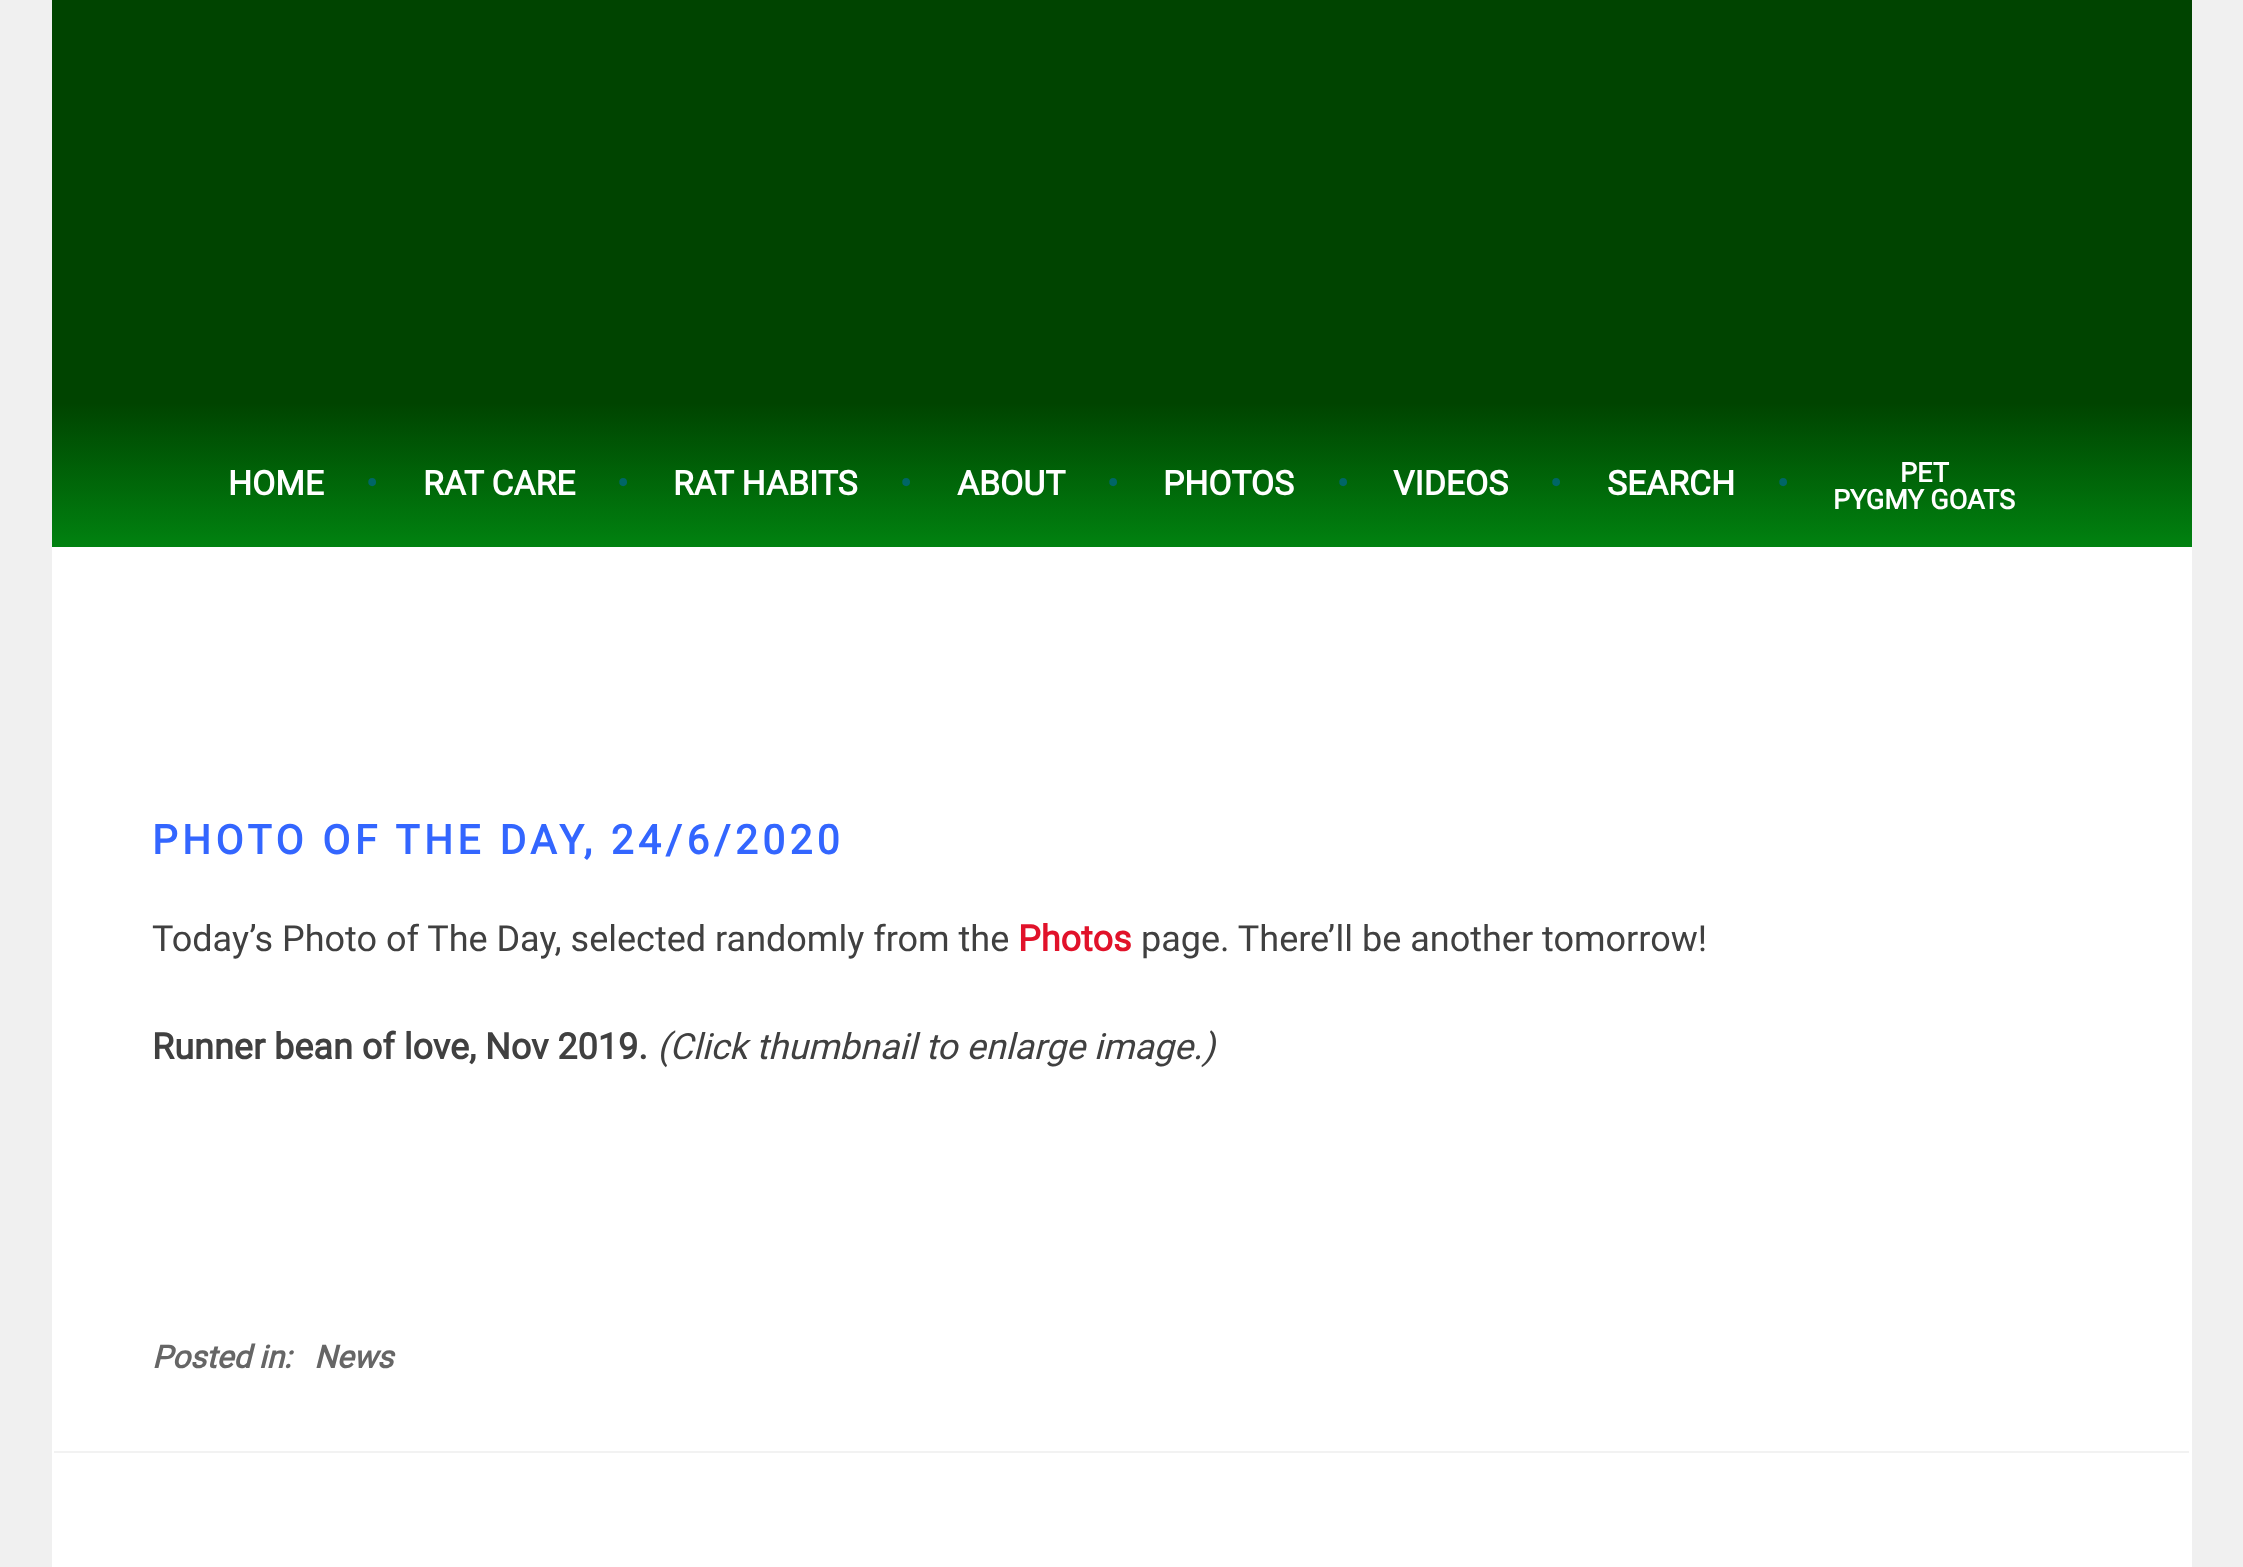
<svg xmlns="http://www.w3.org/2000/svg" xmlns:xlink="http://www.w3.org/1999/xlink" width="2243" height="1567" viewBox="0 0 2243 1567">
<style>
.cls-1{font:bold 33.75px Roboto;fill:#ffffff}
.cls-2{font:bold 33.75px Roboto;fill:#006666}
.cls-3{font:bold 27px Roboto;fill:#ffffff}
.cls-4{font:bold 40.5px Roboto;letter-spacing:4.5px;fill:#3366ff}
.cls-5{font:36px Roboto;fill:#404040}
.cls-6{font:bold 36px Roboto;fill:#e1122a}
.cls-7{font:bold 36px Roboto;fill:#404040}
.cls-8{font:italic 36px Roboto;fill:#404040}
.cls-9{font:italic bold 31.5px Roboto;fill:#666666}
</style>
<defs>
<linearGradient id="g1" gradientUnits="userSpaceOnUse" x1="1122" y1="403" x2="1122" y2="547"><stop offset="0" stop-color="#004400"/><stop offset="1" stop-color="#018210"/></linearGradient>
</defs>
<rect width="100%" height="100%" fill="#f0f0f0"/>
<rect fill="#004400" x="52" y="0" width="2140" height="403"/>
<rect fill="url(#g1)" x="52" y="403" width="2140" height="144"/>
<rect fill="#ffffff" x="52" y="547" width="2140" height="1020"/>
<rect fill="#f2f2f2" x="54" y="1451" width="2135" height="2"/>
<text class="cls-1" x="228" y="495">HOME</text>
<text class="cls-2" x="366" y="495">•</text>
<text class="cls-1" x="423" y="495">RAT CARE</text>
<text class="cls-2" x="617" y="495">•</text>
<text class="cls-1" x="673" y="495">RAT HABITS</text>
<text class="cls-2" x="900" y="495">•</text>
<text class="cls-1" x="957" y="495">ABOUT</text>
<text class="cls-2" x="1107" y="495">•</text>
<text class="cls-1" x="1163" y="495">PHOTOS</text>
<text class="cls-2" x="1337" y="495">•</text>
<text class="cls-1" x="1393" y="495">VIDEOS</text>
<text class="cls-2" x="1550" y="495">•</text>
<text class="cls-1" x="1607" y="495">SEARCH</text>
<text class="cls-2" x="1777" y="495">•</text>
<text class="cls-3" x="1900" y="482">PET</text>
<text class="cls-3" x="1833" y="509">PYGMY GOATS</text>
<text class="cls-4" x="152" y="854">PHOTO OF THE DAY, 24/6/2020</text>
<text class="cls-5" x="152" y="951">Today’s Photo of The Day, selected randomly from the</text>
<text class="cls-6" x="1018" y="951">Photos</text>
<text class="cls-5" x="1141" y="951">page. There’ll be another tomorrow!</text>
<text class="cls-7" x="152" y="1059">Runner bean of love, Nov 2019.</text>
<text class="cls-8" x="657" y="1059">(Click thumbnail to enlarge image.)</text>
<text class="cls-9" x="152" y="1368">Posted in:</text>
<text class="cls-9" x="314" y="1368">News</text>
</svg>
